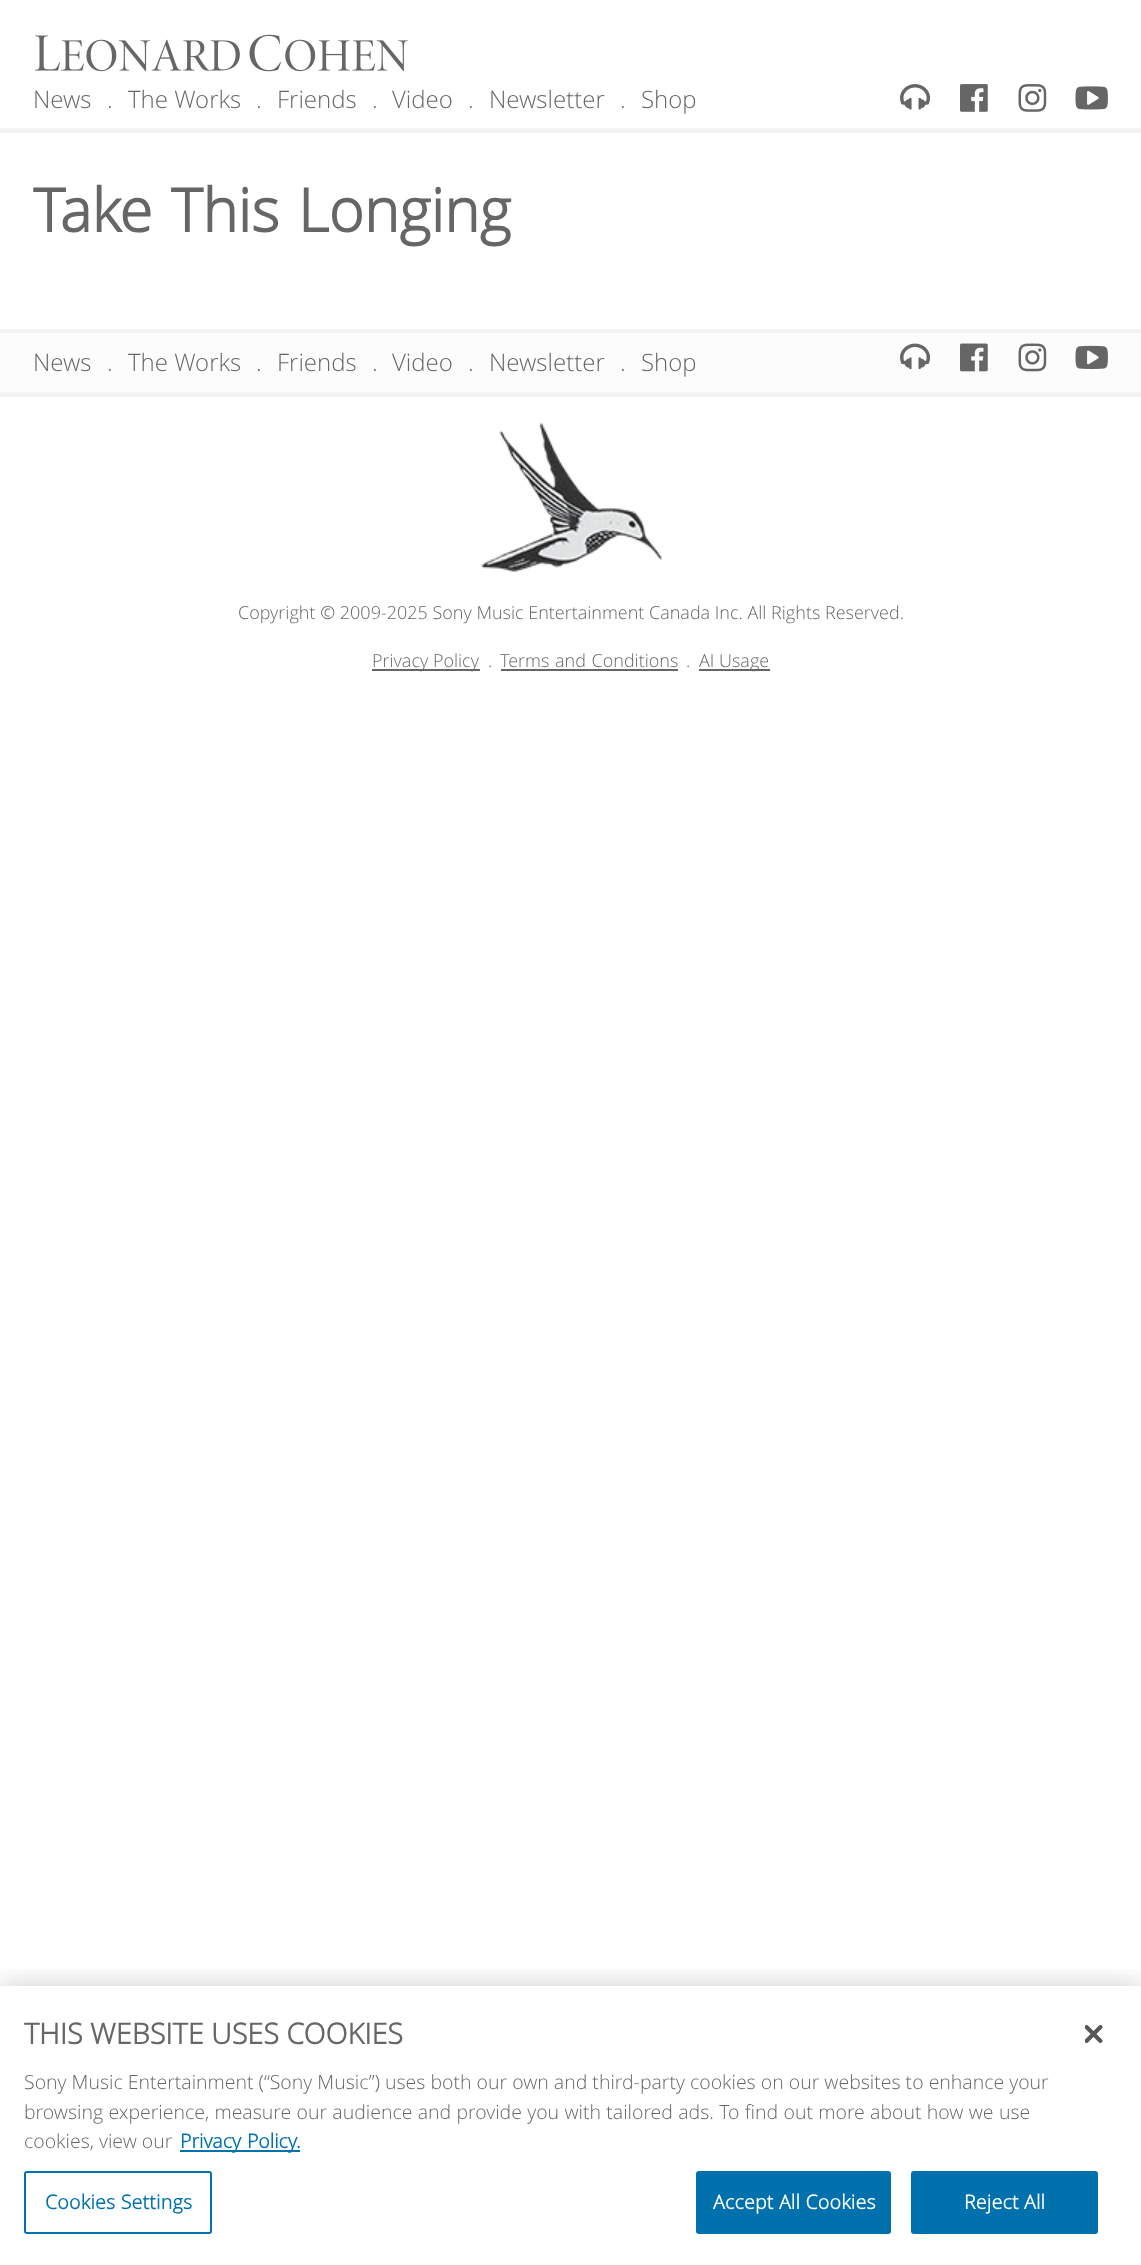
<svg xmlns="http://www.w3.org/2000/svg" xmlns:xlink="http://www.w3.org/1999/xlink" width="1141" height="2265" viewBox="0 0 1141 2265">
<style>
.cls-1{font:300 24px Open Sans;fill:#666666}
.cls-2{font:bold 60px Open Sans;fill:#666666}
.cls-3{font:300 18px Open Sans;fill:#666666}
.cls-4{font:bold 28.75px Open Sans;fill:#666666}
.cls-5{font:300 19.5px Open Sans;fill:#666666}
.cls-6{font:bold 19.5px Open Sans;fill:#0071ad}
.cls-7{font:bold 19.5px Open Sans;letter-spacing:0.25px;fill:#0071ad}
.cls-8{font:bold 19.5px Open Sans;letter-spacing:0.25px;fill:#ffffff}
</style>
<defs>
<clipPath id="clip1"><rect x="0" y="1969" width="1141" height="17"/></clipPath>
</defs>
<rect width="100%" height="100%" fill="#ffffff"/>
<rect fill="#f3f3f3" x="0" y="128" width="1141" height="5"/>
<image xlink:href="image0.png" x="34" y="35" width="26" height="36"/>
<image xlink:href="image1.png" x="61" y="39" width="179" height="33"/>
<image xlink:href="image2.png" x="249" y="34" width="32" height="38"/>
<image xlink:href="image3.png" x="285" y="39" width="123" height="33"/>
<image xlink:href="image4.png" x="900" y="84" width="31" height="26"/>
<image xlink:href="image5.png" x="960" y="84" width="28" height="28"/>
<image xlink:href="image6.png" x="1018" y="84" width="29" height="28"/>
<image xlink:href="image7.png" x="1075" y="86" width="33" height="24"/>
<rect fill="#f3f3f3" x="0" y="329" width="1141" height="4"/>
<rect fill="#fcfcfc" x="0" y="333" width="1141" height="59"/>
<rect fill="#f3f3f3" x="0" y="392" width="1141" height="5"/>
<image xlink:href="image8.png" x="900" y="343" width="31" height="26"/>
<image xlink:href="image9.png" x="960" y="343" width="28" height="29"/>
<image xlink:href="image10.png" x="1018" y="343" width="29" height="29"/>
<image xlink:href="image11.png" x="1075" y="345" width="33" height="24"/>
<image xlink:href="image12.png" x="481" y="423" width="181" height="149"/>
<rect fill="#666666" x="372" y="669" width="108" height="2"/>
<rect fill="#666666" x="501" y="669" width="177" height="2"/>
<rect fill="#666666" x="699" y="669" width="71" height="2"/>
<g clip-path="url(#clip1)">
<rect fill="#000000" fill-opacity="0.2" filter="blur(13.5px)" x="0" y="1986" width="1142" height="279"/>
</g>
<rect fill="#0071ad" x="180" y="2150" width="120" height="2"/>
<rect fill="none" stroke="#0071ad" stroke-width="2" x="25" y="2172" width="186" height="61" rx="2"/>
<rect fill="#0071ad" stroke="#0071ad" stroke-width="2" x="697" y="2172" width="193" height="61" rx="2"/>
<rect fill="#0071ad" stroke="#0071ad" stroke-width="2" x="912" y="2172" width="185" height="61" rx="2"/>
<image xlink:href="image13.png" x="1085" y="2025" width="18" height="18"/>
<text class="cls-1" x="33" y="108">News</text>
<text class="cls-1" x="107" y="108">.</text>
<text class="cls-1" x="128" y="108">The Works</text>
<text class="cls-1" x="256" y="108">.</text>
<text class="cls-1" x="277" y="108">Friends</text>
<text class="cls-1" x="372" y="108">.</text>
<text class="cls-1" x="392" y="108">Video</text>
<text class="cls-1" x="468" y="108">.</text>
<text class="cls-1" x="489" y="108">Newsletter</text>
<text class="cls-1" x="620" y="108">.</text>
<text class="cls-1" x="641" y="108">Shop</text>
<text class="cls-2" x="33" y="232" word-spacing="3">Take This Longing</text>
<text class="cls-1" x="33" y="371">News</text>
<text class="cls-1" x="107" y="371">.</text>
<text class="cls-1" x="128" y="371">The Works</text>
<text class="cls-1" x="256" y="371">.</text>
<text class="cls-1" x="277" y="371">Friends</text>
<text class="cls-1" x="372" y="371">.</text>
<text class="cls-1" x="392" y="371">Video</text>
<text class="cls-1" x="468" y="371">.</text>
<text class="cls-1" x="489" y="371">Newsletter</text>
<text class="cls-1" x="620" y="371">.</text>
<text class="cls-1" x="641" y="371">Shop</text>
<text class="cls-3" x="238" y="619">Copyright © 2009-2025 Sony Music Entertainment Canada Inc. All Rights Reserved.</text>
<text class="cls-3" x="372" y="667">Privacy Policy</text>
<text class="cls-3" x="488" y="667">.</text>
<text class="cls-3" x="500" y="667" word-spacing="1">Terms and Conditions</text>
<text class="cls-3" x="686" y="667">.</text>
<text class="cls-3" x="699" y="667">AI Usage</text>
<text class="cls-4" x="24" y="2044">THIS WEBSITE USES COOKIES</text>
<text class="cls-5"><tspan x="24" y="2089">Sony Music Entertainment (“Sony Music”) uses both our own and third-party cookies on our websites to enhance your</tspan><tspan x="24" y="2119" word-spacing="0.25">browsing experience, measure our audience and provide you with tailored ads. To find out more about how we use</tspan><tspan x="24" y="2148">cookies, view our</tspan></text>
<text class="cls-6" x="180" y="2148" word-spacing="1">Privacy Policy.</text>
<text class="cls-7" x="45" y="2209">Cookies Settings</text>
<text class="cls-8" x="713" y="2209">Accept All Cookies</text>
<text class="cls-8" x="964" y="2209">Reject All</text>
</svg>
